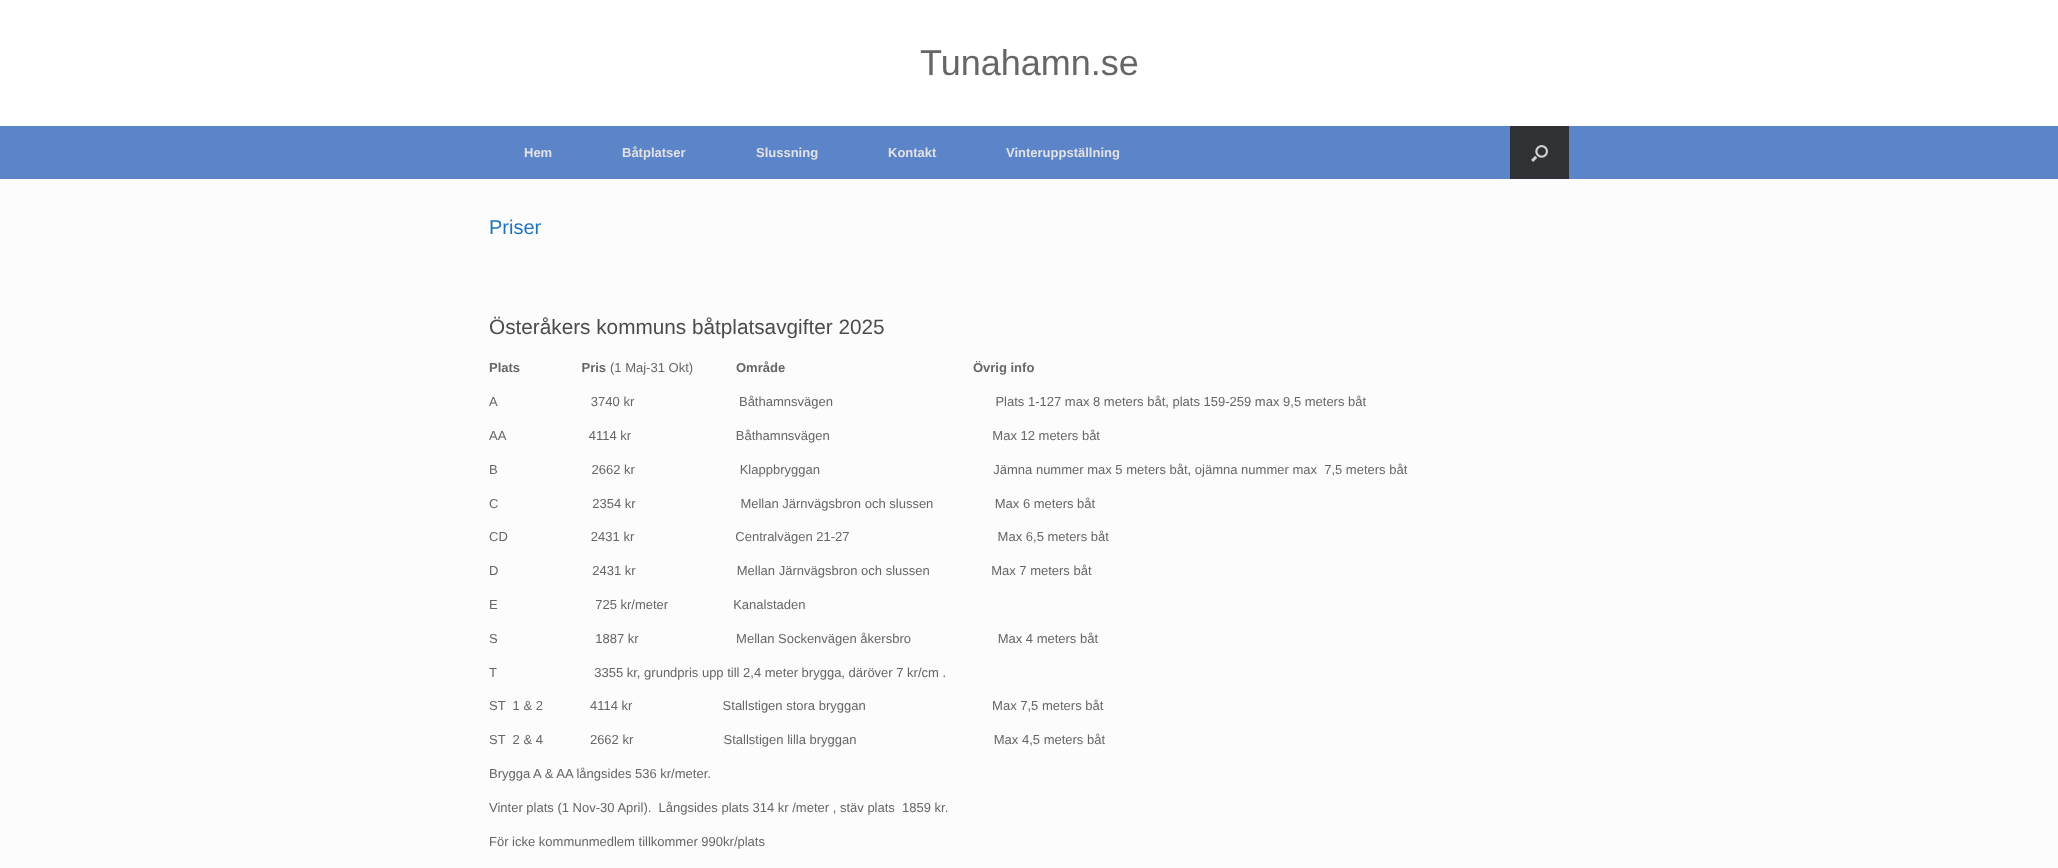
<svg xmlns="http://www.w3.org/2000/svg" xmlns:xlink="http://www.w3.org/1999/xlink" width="2058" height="868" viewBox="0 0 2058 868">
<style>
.cls-1{font:36px Liberation Sans;fill:#666666}
.cls-2{font:bold 13px Liberation Sans;fill:#e2e2e2}
.cls-3{font:20px Liberation Sans;fill:#1e73be}
.cls-4{font:20.75px Liberation Sans;fill:#4c4c4c}
.cls-5{font:bold 13px Liberation Sans;fill:#666666}
.cls-6{font:13px Liberation Sans;fill:#666666}
</style>
<rect width="100%" height="100%" fill="#ffffff"/>
<rect fill="#5c84c9" x="0" y="126" width="2058" height="53"/>
<rect fill="#303134" x="1510" y="126" width="59" height="53"/>
<image xlink:href="image0.png" x="1531" y="145" width="17" height="17"/>
<rect fill="#fcfcfc" x="0" y="179" width="2058" height="689"/>
<text class="cls-1" x="920" y="75">Tunahamn.se</text>
<text class="cls-2" x="524" y="157">Hem</text>
<text class="cls-2" x="622" y="157">Båtplatser</text>
<text class="cls-2" x="756" y="157">Slussning</text>
<text class="cls-2" x="888" y="157">Kontakt</text>
<text class="cls-2" x="1006" y="157">Vinteruppställning</text>
<text class="cls-3" x="489" y="234">Priser</text>
<text class="cls-4" x="489" y="334">Österåkers kommuns båtplatsavgifter 2025</text>
<text class="cls-5" xml:space="preserve" x="489" y="372">Plats                 Pris</text>
<text class="cls-6" x="610" y="372">(1 Maj-31 Okt)</text>
<text class="cls-5" xml:space="preserve" x="736" y="372">Område                                                    Övrig info</text>
<text class="cls-6" xml:space="preserve" x="489" y="406">A                          3740 kr                             Båthamnsvägen                                             Plats 1-127 max 8 meters båt, plats 159-259 max 9,5 meters båt</text>
<text class="cls-6" xml:space="preserve" x="489" y="440">AA                       4114 kr                             Båthamnsvägen                                             Max 12 meters båt</text>
<text class="cls-6" xml:space="preserve" x="489" y="474">B                          2662 kr                             Klappbryggan                                                Jämna nummer max 5 meters båt, ojämna nummer max  7,5 meters båt</text>
<text class="cls-6" xml:space="preserve" x="489" y="508">C                          2354 kr                             Mellan Järnvägsbron och slussen                 Max 6 meters båt</text>
<text class="cls-6" xml:space="preserve" x="489" y="541">CD                       2431 kr                            Centralvägen 21-27                                         Max 6,5 meters båt</text>
<text class="cls-6" xml:space="preserve" x="489" y="575">D                          2431 kr                            Mellan Järnvägsbron och slussen                 Max 7 meters båt</text>
<text class="cls-6" xml:space="preserve" x="489" y="609">E                           725 kr/meter                  Kanalstaden</text>
<text class="cls-6" xml:space="preserve" x="489" y="643">S                           1887 kr                           Mellan Sockenvägen åkersbro                        Max 4 meters båt</text>
<text class="cls-6" xml:space="preserve" x="489" y="677">T                           3355 kr, grundpris upp till 2,4 meter brygga, däröver 7 kr/cm .</text>
<text class="cls-6" xml:space="preserve" x="489" y="710">ST  1 &amp; 2             4114 kr                         Stallstigen stora bryggan                                   Max 7,5 meters båt</text>
<text class="cls-6" xml:space="preserve" x="489" y="744">ST  2 &amp; 4             2662 kr                         Stallstigen lilla bryggan                                      Max 4,5 meters båt</text>
<text class="cls-6" x="489" y="778">Brygga A &amp; AA långsides 536 kr/meter.</text>
<text class="cls-6" xml:space="preserve" x="489" y="812">Vinter plats (1 Nov-30 April).  Långsides plats 314 kr /meter , stäv plats  1859 kr.</text>
<text class="cls-6" x="489" y="846">För icke kommunmedlem tillkommer 990kr/plats</text>
</svg>
